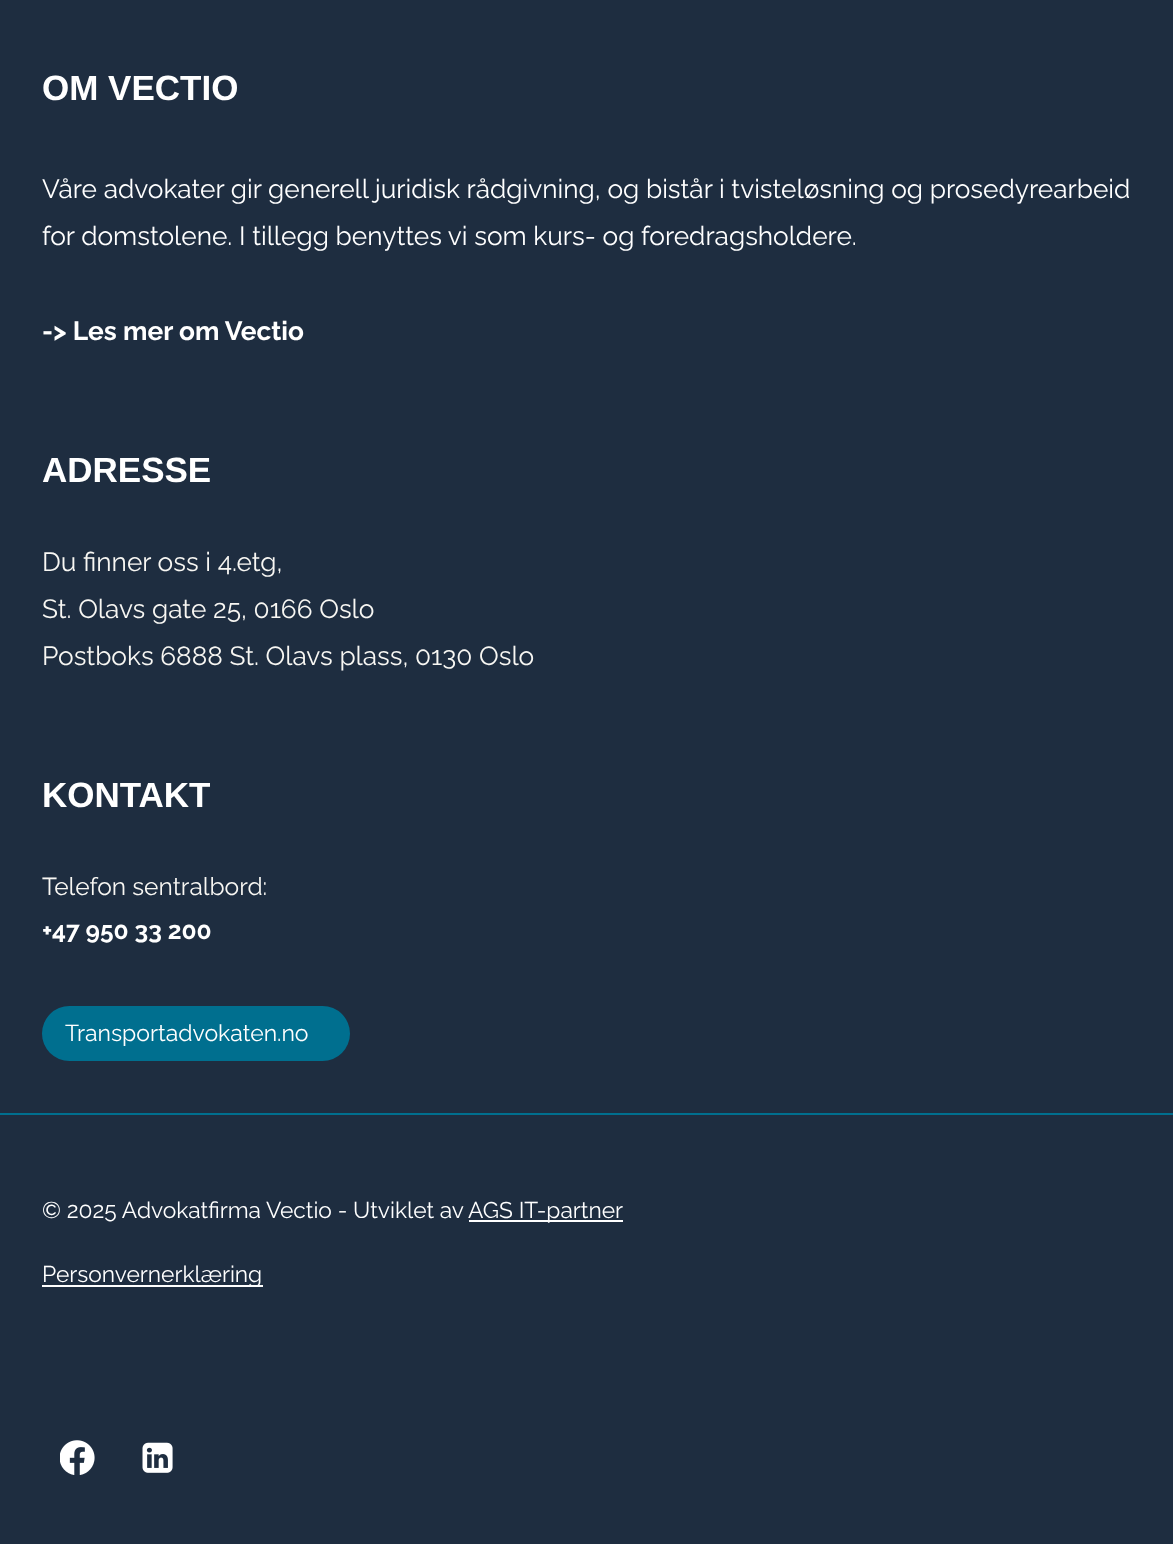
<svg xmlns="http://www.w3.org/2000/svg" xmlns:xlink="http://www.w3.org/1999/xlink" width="1173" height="1544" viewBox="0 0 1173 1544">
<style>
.cls-1{font:bold 35px Liberation Sans;fill:#ffffff}
.cls-2{font:26.25px Raleway;fill:#ffffff}
.cls-3{font:bold 26.25px Raleway;fill:#ffffff}
.cls-4{font:26.25px Raleway;fill:#f8f7f3}
.cls-5{font:24.5px Raleway;fill:#f8f7f3}
.cls-6{font:bold 24.5px Raleway;fill:#ffffff}
.cls-7{font:23px Raleway;fill:#ffffff}
.cls-8{font:22.75px Raleway;fill:#ffffff}
</style>
<rect width="100%" height="100%" fill="#1e2d40"/>
<rect fill="#006f8f" x="0" y="1113" width="1173" height="2"/>
<rect fill="#006f8f" x="42" y="1006" width="308" height="55" rx="27.5"/>
<rect fill="#ffffff" x="469" y="1220" width="154" height="2"/>
<rect fill="#ffffff" x="42" y="1285" width="221" height="2"/>
<image xlink:href="image0.png" x="60" y="1440" width="35" height="35"/>
<image xlink:href="image1.png" x="142" y="1442" width="31" height="31"/>
<text class="cls-1" x="42" y="100">OM VECTIO</text>
<text class="cls-2"><tspan x="42" y="198">Våre advokater gir generell juridisk rådgivning, og bistår i tvisteløsning og prosedyrearbeid</tspan><tspan x="42" y="245">for domstolene. I tillegg benyttes vi som kurs- og foredragsholdere.</tspan></text>
<text class="cls-3" x="42" y="340">-&gt; Les mer om Vectio</text>
<text class="cls-1" x="42" y="482">ADRESSE</text>
<text class="cls-4"><tspan x="42" y="571">Du finner oss i 4.etg,</tspan><tspan x="42" y="618">St. Olavs gate 25, 0166 Oslo</tspan><tspan x="42" y="665">Postboks 6888 St. Olavs plass, 0130 Oslo</tspan></text>
<text class="cls-1" x="42" y="807">KONTAKT</text>
<text class="cls-5" x="42" y="895">Telefon sentralbord:</text>
<text class="cls-6" x="42" y="939">+47 950 33 200</text>
<text class="cls-7" x="65" y="1041">Transportadvokaten.no</text>
<text class="cls-8" x="42" y="1218">© 2025 Advokatfirma Vectio - Utviklet av</text>
<text class="cls-8" x="468" y="1218">AGS IT-partner</text>
<text class="cls-8" x="42" y="1282">Personvernerklæring</text>
</svg>
